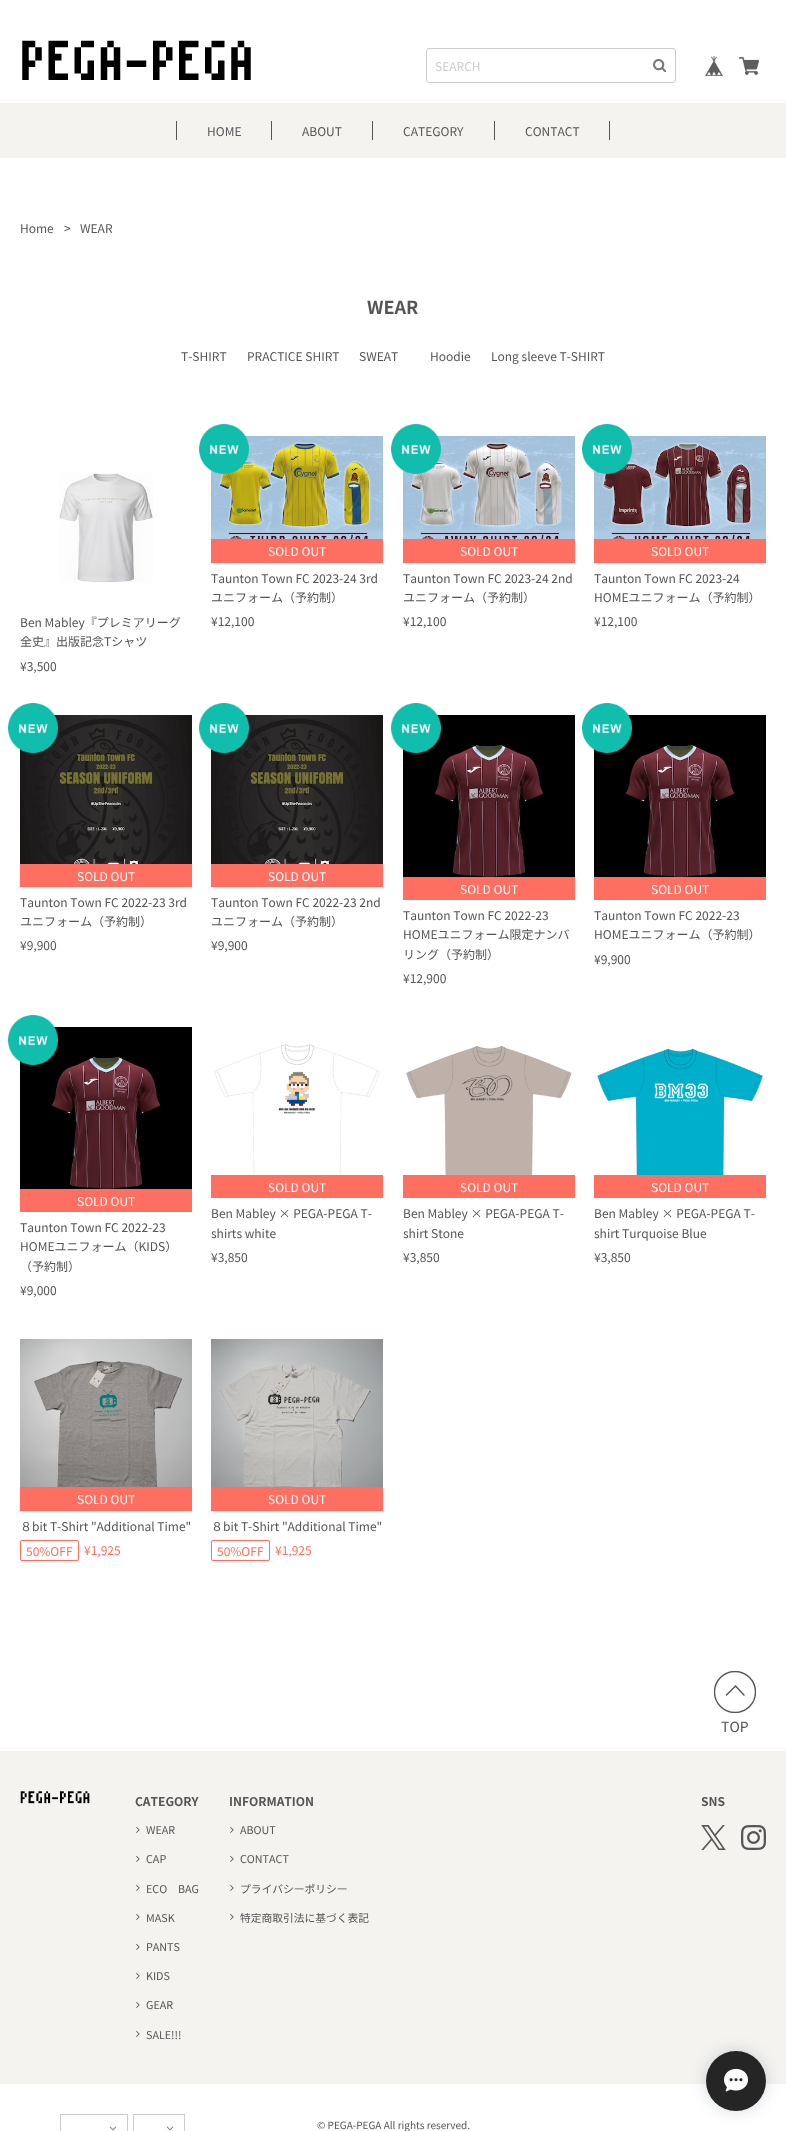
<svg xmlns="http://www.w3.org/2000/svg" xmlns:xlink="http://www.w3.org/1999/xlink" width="786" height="2131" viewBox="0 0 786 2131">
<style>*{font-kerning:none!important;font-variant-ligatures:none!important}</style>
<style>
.cls-1{font:12px Noto Sans JP;fill:#cccccc}
.cls-2{font:12px Noto Sans JP;fill:#555555}
.cls-3{font:bold 18px Noto Sans JP;fill:#555555}
.cls-4{font:12px Noto Sans JP;fill:#ffffff}
.cls-5{font:12px Noto Sans JP;fill:#ff6f61}
.cls-6{font:14px Noto Sans JP;fill:#555555}
.cls-7{font:bold 12px Noto Sans JP;fill:#555555}
.cls-8{font:10.75px Noto Sans JP;fill:#555555}
.cls-9{font:10px Noto Sans JP;fill:#555555}
</style>
<defs>
<clipPath id="clip1"><rect x="714" y="1671" width="42" height="42"/></clipPath>
</defs>
<rect width="100%" height="100%" fill="#ffffff"/>
<image xlink:href="image0.png" x="22" y="40" width="229" height="40"/>
<rect fill="none" stroke="#cccccc" x="426.5" y="48.5" width="249" height="34" rx="2.5"/>
<image xlink:href="image1.png" x="653" y="59" width="13" height="13"/>
<image xlink:href="image2.png" x="705" y="56" width="18" height="20"/>
<image xlink:href="image3.png" x="739" y="56" width="20" height="20"/>
<rect fill="#f4f3f0" x="0" y="103" width="786" height="55"/>
<rect fill="#555555" x="176" y="121" width="1" height="19"/>
<rect fill="#555555" x="271" y="121" width="1" height="19"/>
<rect fill="#555555" x="372" y="121" width="1" height="19"/>
<rect fill="#555555" x="609" y="121" width="1" height="19"/>
<rect fill="#555555" x="494" y="121" width="1" height="19"/>
<image xlink:href="image5.png" x="211" y="436" width="172" height="103"/>
<image xlink:href="image4.png" x="199" y="424" width="50" height="50"/>
<rect fill="#ff6f61" x="211" y="539" width="172" height="24"/>
<image xlink:href="image7.png" x="403" y="436" width="172" height="103"/>
<image xlink:href="image6.png" x="391" y="424" width="50" height="50"/>
<rect fill="#ff6f61" x="403" y="539" width="172" height="24"/>
<image xlink:href="image9.png" x="594" y="436" width="172" height="103"/>
<image xlink:href="image8.png" x="582" y="424" width="50" height="50"/>
<rect fill="#ff6f61" x="594" y="539" width="172" height="24"/>
<image xlink:href="image10.png" x="59" y="473" width="94" height="110"/>
<image xlink:href="image12.png" x="20" y="715" width="172" height="149"/>
<image xlink:href="image11.png" x="8" y="703" width="50" height="50"/>
<rect fill="#ff6f61" x="20" y="864" width="172" height="23"/>
<image xlink:href="image14.png" x="211" y="715" width="172" height="149"/>
<image xlink:href="image13.png" x="199" y="703" width="50" height="50"/>
<rect fill="#ff6f61" x="211" y="864" width="172" height="23"/>
<image xlink:href="image16.png" x="403" y="715" width="172" height="162"/>
<image xlink:href="image15.png" x="391" y="703" width="50" height="50"/>
<rect fill="#ff6f61" x="403" y="877" width="172" height="23"/>
<image xlink:href="image16.png" x="594" y="715" width="172" height="162"/>
<image xlink:href="image17.png" x="582" y="703" width="50" height="50"/>
<rect fill="#ff6f61" x="594" y="877" width="172" height="23"/>
<image xlink:href="image18.png" x="20" y="1027" width="172" height="162"/>
<image xlink:href="image17.png" x="8" y="1015" width="50" height="50"/>
<rect fill="#ff6f61" x="20" y="1189" width="172" height="23"/>
<image xlink:href="image19.png" x="214" y="1044" width="166" height="131"/>
<rect fill="#ff6f61" x="211" y="1175" width="172" height="23"/>
<image xlink:href="image20.png" x="406" y="1046" width="166" height="129"/>
<rect fill="#ff6f61" x="403" y="1175" width="172" height="23"/>
<image xlink:href="image21.png" x="597" y="1048" width="166" height="127"/>
<rect fill="#ff6f61" x="594" y="1175" width="172" height="23"/>
<image xlink:href="image22.png" x="20" y="1339" width="172" height="148"/>
<rect fill="#ff6f61" x="20" y="1487" width="172" height="24"/>
<rect fill="none" stroke="#ff6f61" x="20.5" y="1540.5" width="58" height="20" rx="1.5"/>
<image xlink:href="image23.png" x="211" y="1339" width="172" height="148"/>
<rect fill="#ff6f61" x="211" y="1487" width="172" height="24"/>
<rect fill="none" stroke="#ff6f61" x="211.5" y="1540.5" width="58" height="20" rx="1.5"/>
<rect fill="#f4f3f0" x="0" y="1751" width="786" height="333"/>
<g clip-path="url(#clip1)">
<circle fill="none" stroke="#555555" stroke-width="1.4" cx="735" cy="1692" r="20.5"/>
</g>
<path fill="none" stroke="#555555" stroke-width="1.4" stroke-linecap="round" d="M744 1695L735.5 1686L726.5 1695"/>
<image xlink:href="image24.png" x="20" y="1791" width="70" height="13"/>
<image xlink:href="image25.png" x="136" y="1827" width="4" height="6"/>
<image xlink:href="image25.png" x="136" y="1856" width="4" height="6"/>
<image xlink:href="image25.png" x="136" y="1885" width="4" height="6"/>
<image xlink:href="image25.png" x="136" y="1914" width="4" height="6"/>
<image xlink:href="image25.png" x="136" y="1944" width="4" height="6"/>
<image xlink:href="image25.png" x="136" y="1973" width="4" height="6"/>
<image xlink:href="image25.png" x="136" y="2002" width="4" height="6"/>
<image xlink:href="image25.png" x="136" y="2031" width="4" height="6"/>
<image xlink:href="image25.png" x="230" y="1827" width="4" height="6"/>
<image xlink:href="image25.png" x="230" y="1856" width="4" height="6"/>
<image xlink:href="image25.png" x="230" y="1885" width="4" height="6"/>
<image xlink:href="image25.png" x="230" y="1914" width="4" height="6"/>
<image xlink:href="image26.png" x="701" y="1825" width="25" height="25"/>
<image xlink:href="image27.png" x="741" y="1825" width="25" height="25"/>
<rect fill="none" stroke="#cccccc" x="60.5" y="2114.5" width="67" height="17"/>
<image xlink:href="image28.png" x="109" y="2126" width="8" height="5"/>
<rect fill="none" stroke="#cccccc" x="133.5" y="2114.5" width="51" height="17"/>
<image xlink:href="image28.png" x="166" y="2126" width="8" height="5"/>
<rect fill="#334258" fill-opacity="0.2" filter="blur(7.5px)" x="706" y="2051" width="60" height="60" rx="30"/>
<circle fill="#252525" cx="736" cy="2081" r="30"/>
<image xlink:href="image29.png" x="724" y="2068" width="24" height="24"/>
<text class="cls-1" x="435" y="71">SEARCH</text>
<text class="cls-2" x="207" y="136">HOME</text>
<text class="cls-2" x="302" y="136">ABOUT</text>
<text class="cls-2" x="403" y="136">CATEGORY</text>
<text class="cls-2" x="525" y="136">CONTACT</text>
<text class="cls-2" x="20" y="233">Home</text>
<text class="cls-2" x="64" y="233">&gt;</text>
<text class="cls-2" x="80" y="233">WEAR</text>
<text class="cls-3" x="367" y="314">WEAR</text>
<text class="cls-2" x="181" y="361">T-SHIRT</text>
<text class="cls-2" x="247" y="361">PRACTICE SHIRT</text>
<text class="cls-2" x="359" y="361">SWEAT</text>
<text class="cls-2" x="430" y="361">Hoodie</text>
<text class="cls-2" x="491" y="361">Long sleeve T-SHIRT</text>
<text class="cls-4" x="268" y="556">SOLD OUT</text>
<text class="cls-2"><tspan x="211" y="583">Taunton Town FC 2023-24 3rd</tspan><tspan x="211" y="602">ユニフォーム（予約制）</tspan></text>
<text class="cls-2" x="211" y="626">¥12,100</text>
<text class="cls-4" x="460" y="556">SOLD OUT</text>
<text class="cls-2"><tspan x="403" y="583">Taunton Town FC 2023-24 2nd</tspan><tspan x="403" y="602">ユニフォーム（予約制）</tspan></text>
<text class="cls-2" x="403" y="626">¥12,100</text>
<text class="cls-4" x="651" y="556">SOLD OUT</text>
<text class="cls-2"><tspan x="594" y="583">Taunton Town FC 2023-24</tspan><tspan x="594" y="602">HOMEユニフォーム（予約制）</tspan></text>
<text class="cls-2" x="594" y="626">¥12,100</text>
<text class="cls-2"><tspan x="20" y="627">Ben Mabley『プレミアリーグ</tspan><tspan x="20" y="646">全史』出版記念Tシャツ</tspan></text>
<text class="cls-2" x="20" y="671">¥3,500</text>
<text class="cls-4" x="77" y="881">SOLD OUT</text>
<text class="cls-2"><tspan x="20" y="907">Taunton Town FC 2022-23 3rd</tspan><tspan x="20" y="926">ユニフォーム（予約制）</tspan></text>
<text class="cls-2" x="20" y="950">¥9,900</text>
<text class="cls-4" x="268" y="881">SOLD OUT</text>
<text class="cls-2"><tspan x="211" y="907">Taunton Town FC 2022-23 2nd</tspan><tspan x="211" y="926">ユニフォーム（予約制）</tspan></text>
<text class="cls-2" x="211" y="950">¥9,900</text>
<text class="cls-4" x="460" y="894">SOLD OUT</text>
<text class="cls-2"><tspan x="403" y="920">Taunton Town FC 2022-23</tspan><tspan x="403" y="939">HOMEユニフォーム限定ナンバ</tspan><tspan x="403" y="959">リング（予約制）</tspan></text>
<text class="cls-2" x="403" y="983">¥12,900</text>
<text class="cls-4" x="651" y="894">SOLD OUT</text>
<text class="cls-2"><tspan x="594" y="920">Taunton Town FC 2022-23</tspan><tspan x="594" y="939">HOMEユニフォーム（予約制）</tspan></text>
<text class="cls-2" x="594" y="964">¥9,900</text>
<text class="cls-4" x="77" y="1206">SOLD OUT</text>
<text class="cls-2"><tspan x="20" y="1232">Taunton Town FC 2022-23</tspan><tspan x="20" y="1251">HOMEユニフォーム（KIDS）</tspan><tspan x="20" y="1271">（予約制）</tspan></text>
<text class="cls-2" x="20" y="1295">¥9,000</text>
<text class="cls-4" x="268" y="1192">SOLD OUT</text>
<text class="cls-2"><tspan x="211" y="1218">Ben Mabley × PEGA-PEGA T-</tspan><tspan x="211" y="1238">shirts white</tspan></text>
<text class="cls-2" x="211" y="1262">¥3,850</text>
<text class="cls-4" x="460" y="1192">SOLD OUT</text>
<text class="cls-2"><tspan x="403" y="1218">Ben Mabley × PEGA-PEGA T-</tspan><tspan x="403" y="1238">shirt Stone</tspan></text>
<text class="cls-2" x="403" y="1262">¥3,850</text>
<text class="cls-4" x="651" y="1192">SOLD OUT</text>
<text class="cls-2"><tspan x="594" y="1218">Ben Mabley × PEGA-PEGA T-</tspan><tspan x="594" y="1238">shirt Turquoise Blue</tspan></text>
<text class="cls-2" x="594" y="1262">¥3,850</text>
<text class="cls-4" x="77" y="1504">SOLD OUT</text>
<text class="cls-2" x="20" y="1531">８bit T-Shirt "Additional Time"</text>
<text class="cls-5" x="26" y="1556">50%OFF</text>
<text class="cls-5" x="84" y="1555">¥1,925</text>
<text class="cls-4" x="268" y="1504">SOLD OUT</text>
<text class="cls-2" x="211" y="1531">８bit T-Shirt "Additional Time"</text>
<text class="cls-5" x="217" y="1556">50%OFF</text>
<text class="cls-5" x="275" y="1555">¥1,925</text>
<text class="cls-6" x="721" y="1732">TOP</text>
<text class="cls-7" x="135" y="1806">CATEGORY</text>
<text class="cls-8" x="146" y="1834">WEAR</text>
<text class="cls-8" x="146" y="1863">CAP</text>
<text class="cls-8" x="146" y="1893">ECO　BAG</text>
<text class="cls-8" x="146" y="1922">MASK</text>
<text class="cls-8" x="146" y="1951">PANTS</text>
<text class="cls-8" x="146" y="1980">KIDS</text>
<text class="cls-8" x="146" y="2009">GEAR</text>
<text class="cls-8" x="146" y="2039">SALE!!!</text>
<text class="cls-7" x="229" y="1806">INFORMATION</text>
<text class="cls-8" x="240" y="1834">ABOUT</text>
<text class="cls-8" x="240" y="1863">CONTACT</text>
<text class="cls-8" x="240" y="1893">プライバシーポリシー</text>
<text class="cls-8" x="240" y="1922">特定商取引法に基づく表記</text>
<text class="cls-7" x="701" y="1806">SNS</text>
<text class="cls-9" x="317" y="2129">© PEGA-PEGA All rights reserved.</text>
</svg>
